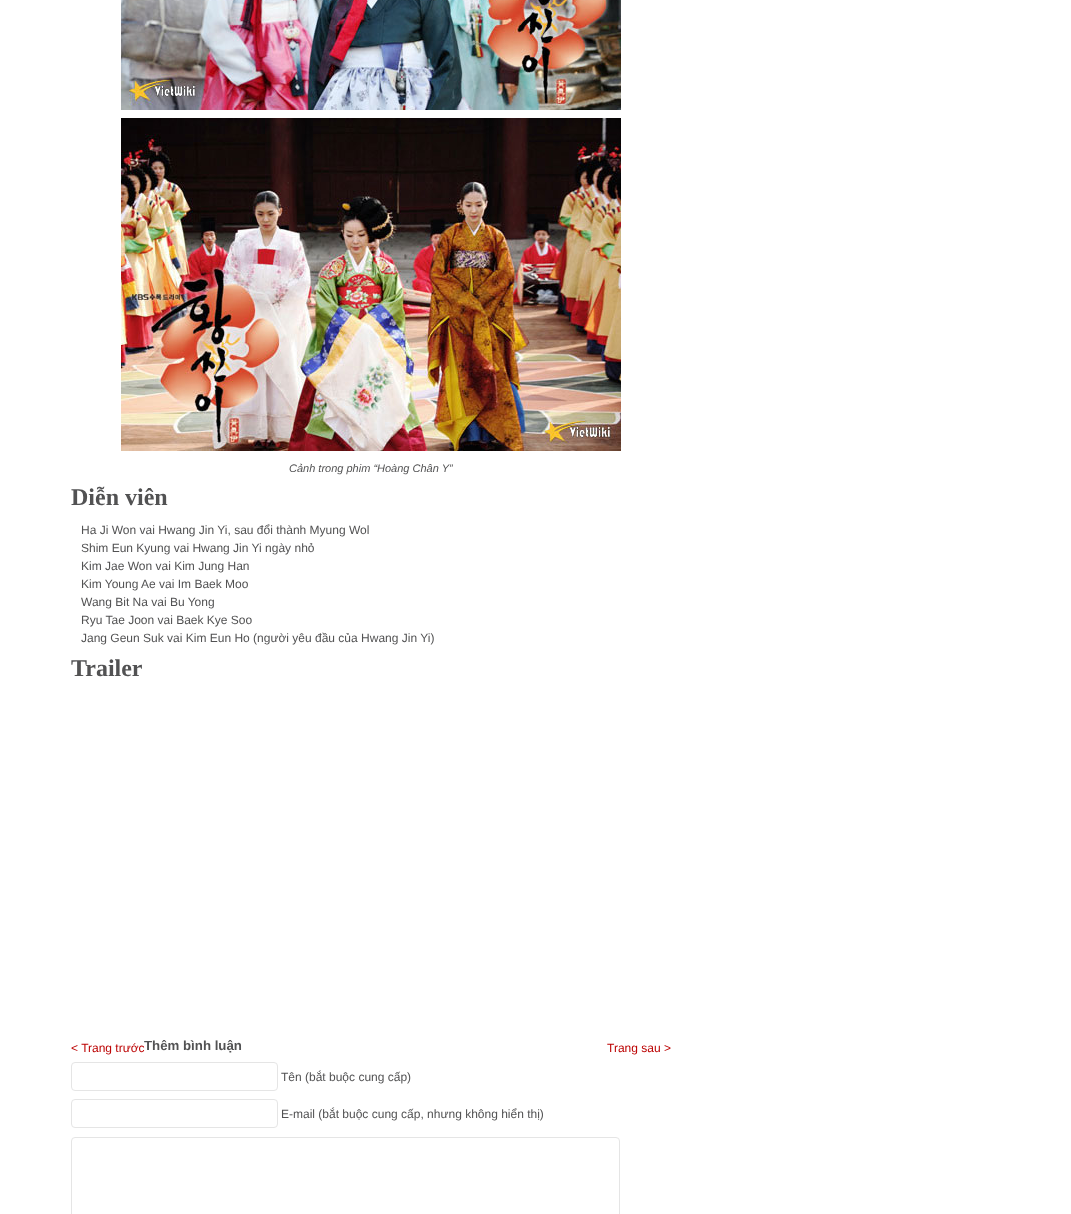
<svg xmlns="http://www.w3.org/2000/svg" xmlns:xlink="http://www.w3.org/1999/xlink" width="1071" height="1214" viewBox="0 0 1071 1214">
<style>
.cls-1{font:italic 11px Liberation Sans;fill:#525253}
.cls-2{font:bold 24px Liberation Serif;fill:#525253}
.cls-3{font:12px Liberation Sans;fill:#525253}
.cls-4{font:bold 13.25px Liberation Sans;fill:#525253}
.cls-5{font:12px Liberation Sans;fill:#bc0202}
</style>
<rect width="100%" height="100%" fill="#ffffff"/>
<image xlink:href="image0.png" x="121" y="0" width="500" height="110"/>
<image xlink:href="image1.png" x="121" y="118" width="500" height="333"/>
<rect fill="none" stroke="#e5e5e5" x="71.5" y="1062.5" width="206" height="28" rx="3.5"/>
<rect fill="none" stroke="#e5e5e5" x="71.5" y="1099.5" width="206" height="28" rx="3.5"/>
<rect fill="none" stroke="#e5e5e5" x="71.5" y="1137.5" width="548" height="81" rx="3.5"/>
<text class="cls-1" x="289" y="472">Cảnh trong phim “Hoàng Chân Y”</text>
<text class="cls-2" x="71" y="505">Diễn viên</text>
<text class="cls-3"><tspan x="81" y="534">Ha Ji Won vai Hwang Jin Yi, sau đổi thành Myung Wol</tspan><tspan x="81" y="552">Shim Eun Kyung vai Hwang Jin Yi ngày nhỏ</tspan><tspan x="81" y="570">Kim Jae Won vai Kim Jung Han</tspan><tspan x="81" y="588">Kim Young Ae vai Im Baek Moo</tspan><tspan x="81" y="606">Wang Bit Na vai Bu Yong</tspan><tspan x="81" y="624">Ryu Tae Joon vai Baek Kye Soo</tspan><tspan x="81" y="642">Jang Geun Suk vai Kim Eun Ho (người yêu đầu của Hwang Jin Yi)</tspan></text>
<text class="cls-2" x="71" y="676">Trailer</text>
<text class="cls-4" x="144" y="1050">Thêm bình luận</text>
<text class="cls-3" x="281" y="1081">Tên (bắt buộc cung cấp)</text>
<text class="cls-3" x="281" y="1118">E-mail (bắt buộc cung cấp, nhưng không hiển thị)</text>
<text class="cls-5" x="71" y="1052">&lt; Trang trước</text>
<text class="cls-5" x="607" y="1052">Trang sau &gt;</text>
</svg>
